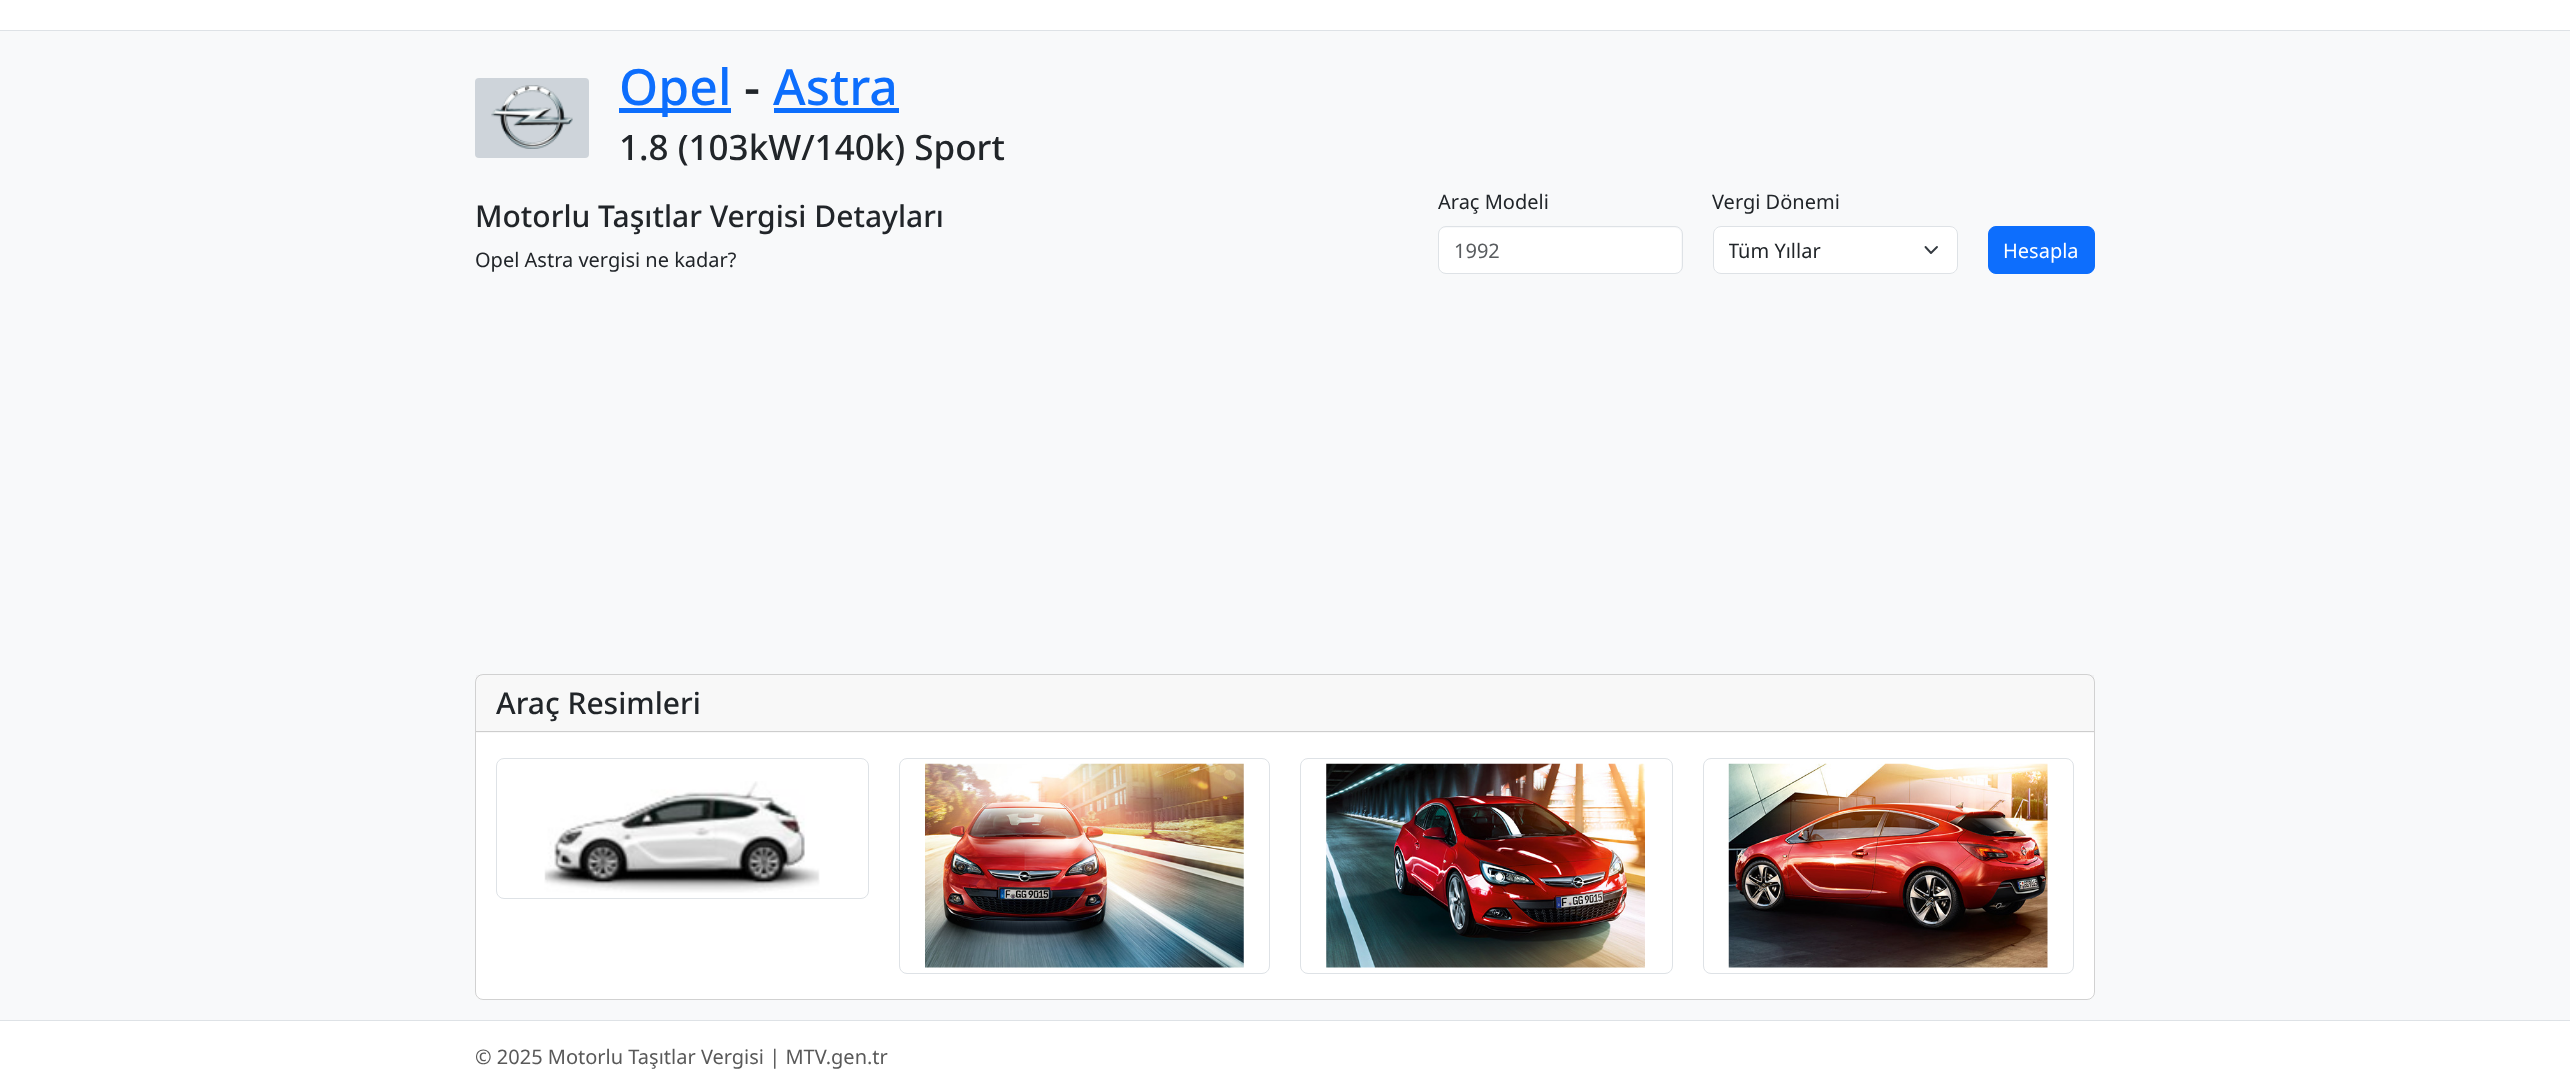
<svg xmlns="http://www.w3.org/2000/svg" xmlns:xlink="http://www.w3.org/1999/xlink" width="2570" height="1087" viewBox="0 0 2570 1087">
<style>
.cls-1{font:500 50px Noto Sans;fill:#0d6efd}
.cls-2{font:500 50px Noto Sans;fill:#212529}
.cls-3{font:500 35px Noto Sans;fill:#212529}
.cls-4{font:500 30px Noto Sans;fill:#212529}
.cls-5{font:20px Noto Sans;fill:#212529}
.cls-6{font:20px Noto Sans;fill:#595c5f}
.cls-7{font:20px Noto Sans;fill:#ffffff}
.cls-8{font:20px Noto Sans;fill:#595959}
</style>
<defs>
<clipPath id="clip1"><rect x="1729" y="235" width="182" height="30"/></clipPath>
</defs>
<rect width="100%" height="100%" fill="#f8f9fa"/>
<rect fill="#ffffff" x="0" y="0" width="2570" height="30"/>
<rect fill="#dee2e6" x="0" y="30" width="2570" height="1"/>
<rect fill="#ced4da" x="475" y="78" width="114" height="80" rx="4"/>
<image xlink:href="image0.png" x="491" y="85" width="82" height="64"/>
<rect fill="#0d6efd" x="619" y="108" width="112" height="5"/>
<rect fill="#0d6efd" x="774" y="108" width="125" height="5"/>
<rect fill="#ffffff" x="1439" y="228" width="242" height="45" rx="6"/>
<rect fill="none" stroke="#dee2e6" x="1438.5" y="226.5" width="244" height="47" rx="7.5"/>
<rect fill="#ffffff" x="1713" y="226" width="245" height="48" rx="8"/>
<path fill="none" stroke="#343a40" stroke-width="1.9" stroke-linecap="round" stroke-linejoin="round" d="M1925.5 247L1931 253L1937 247"/>
<rect fill="none" stroke="#dee2e6" x="1713.5" y="226.5" width="244" height="47" rx="7.5"/>
<rect fill="#0d6efd" stroke="#0d6efd" x="1988.5" y="226.5" width="106" height="47" rx="7.5"/>
<rect fill="#ffffff" x="475" y="674" width="1620" height="326" rx="8"/>
<rect fill="none" stroke="#000000" stroke-opacity="0.18" x="475.5" y="674.5" width="1619" height="325" rx="7.5"/>
<rect fill="#212529" fill-opacity="0.03" x="476" y="675" width="1618" height="58"/>
<rect fill="#cdcdcd" x="476" y="731" width="1618" height="1"/>
<rect fill="none" stroke="#dee2e6" x="496.5" y="758.5" width="372" height="140" rx="7.5"/>
<image xlink:href="image1.png" x="544" y="781" width="276" height="112"/>
<rect fill="none" stroke="#dee2e6" x="899.5" y="758.5" width="370" height="215" rx="7.5"/>
<image xlink:href="image2.png" x="925" y="763" width="319" height="205"/>
<rect fill="none" stroke="#dee2e6" x="1300.5" y="758.5" width="372" height="215" rx="7.5"/>
<image xlink:href="image3.png" x="1326" y="763" width="319" height="205"/>
<rect fill="none" stroke="#dee2e6" x="1703.5" y="758.5" width="370" height="215" rx="7.5"/>
<image xlink:href="image4.png" x="1728" y="763" width="320" height="205"/>
<rect fill="#ffffff" x="0" y="1021" width="2570" height="66"/>
<rect fill="#dee2e6" x="0" y="1020" width="2570" height="1"/>
<text class="cls-1" x="619" y="105">Opel</text>
<text class="cls-2" x="744" y="105">‐</text>
<text class="cls-1" x="773" y="105">Astra</text>
<text class="cls-3" x="619" y="160">1.8 (103kW/140k) Sport</text>
<text class="cls-4" x="475" y="227">Motorlu Taşıtlar Vergisi Detayları</text>
<text class="cls-5" x="475" y="267">Opel Astra vergisi ne kadar?</text>
<text class="cls-5" x="1438" y="209">Araç Modeli</text>
<text class="cls-6" x="1454" y="258">1992</text>
<text class="cls-5" x="1712" y="209">Vergi Dönemi</text>
<g clip-path="url(#clip1)">
<text class="cls-5" x="1728" y="258">Tüm Yıllar</text>
</g>
<text class="cls-7" x="2003" y="258">Hesapla</text>
<text class="cls-4" x="496" y="714">Araç Resimleri</text>
<text class="cls-8" x="475" y="1064">© 2025 Motorlu Taşıtlar Vergisi | MTV.gen.tr</text>
</svg>
